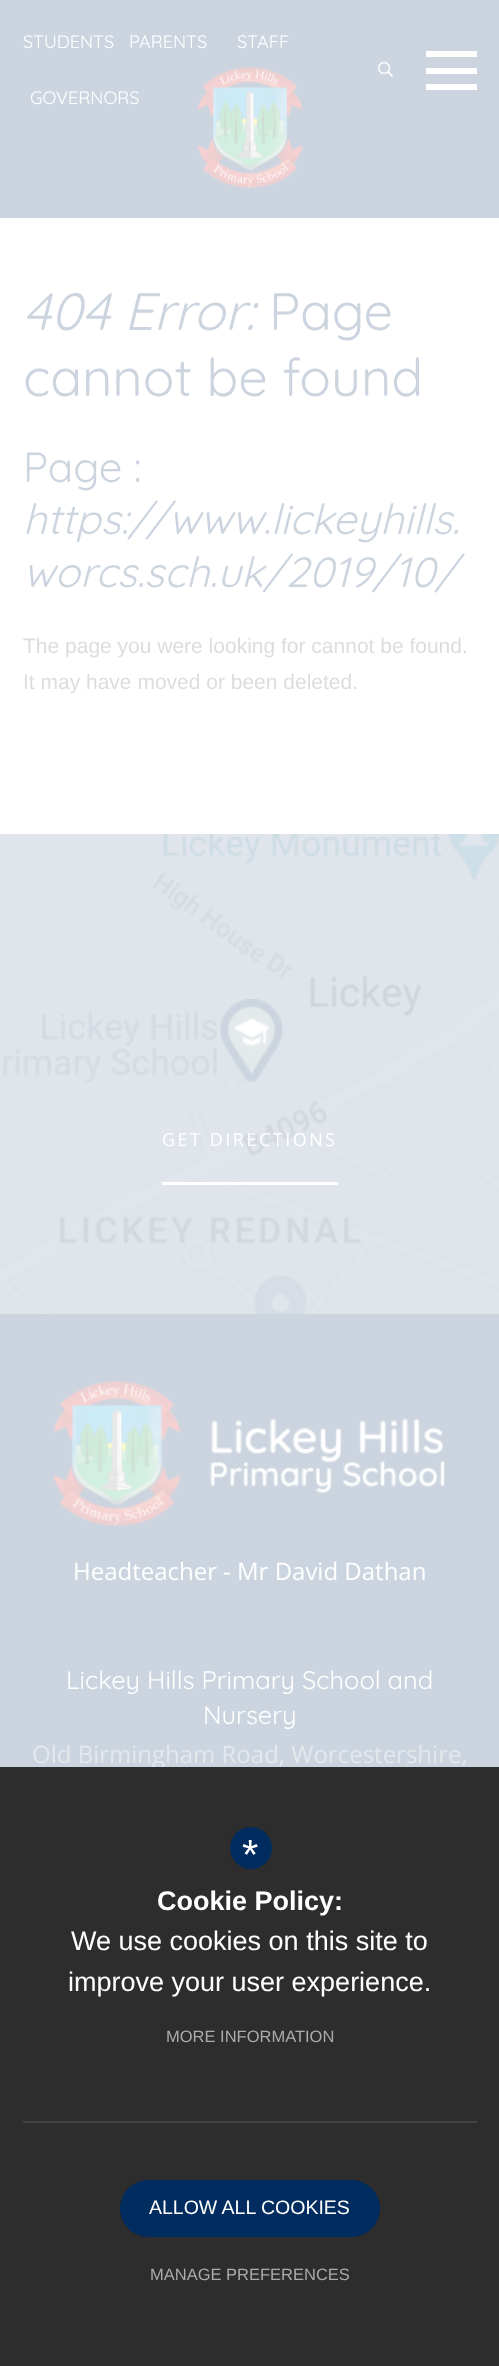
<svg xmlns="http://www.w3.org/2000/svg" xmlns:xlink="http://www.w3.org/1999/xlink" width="499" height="2366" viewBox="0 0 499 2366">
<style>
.cls-1{font:300 18px Quicksand;fill:#ffffff}
.cls-2{font:italic 300 52.5px Quicksand;fill:#ccd5df}
.cls-3{font:300 52.5px Quicksand;fill:#ccd5df}
.cls-4{font:300 42px Quicksand;fill:#ccd5df}
.cls-5{font:italic 300 42px Quicksand;fill:#ccd5df}
.cls-6{font:21px Liberation Sans;fill:#dedddd}
.cls-7{font:18px Open Sans;letter-spacing:2.5px;fill:#ffffff}
.cls-8{font:24px Open Sans;fill:#ffffff}
.cls-9{font:24px Liberation Sans;fill:#ffffff}
.cls-10{font:300 25.5px Quicksand;fill:#ffffff}
.cls-11{font:24px Open Sans;fill:#e3e8ed}
.cls-12{font:42px Liberation Sans;fill:#ffffff}
.cls-13{font:bold 27px Liberation Sans;fill:#ffffff}
.cls-14{font:27px Liberation Sans;fill:#ffffff}
.cls-15{font:16.5px Liberation Sans;fill:#ababab}
.cls-16{font:19.5px Liberation Sans;fill:#ffffff}
</style>
<rect width="100%" height="100%" fill="#ffffff"/>
<rect fill="#ccd5df" x="0" y="0" width="499" height="218"/>
<image xlink:href="image0.png" x="378" y="61" width="15" height="16"/>
<rect fill="#ffffff" x="426" y="51" width="51" height="6"/>
<rect fill="#ffffff" x="426" y="68" width="51" height="6"/>
<rect fill="#ffffff" x="426" y="84" width="51" height="6"/>
<image xlink:href="image1.png" x="197" y="67" width="106" height="121"/>
<image xlink:href="image2.png" x="0" y="834" width="499" height="480"/>
<image xlink:href="image3.png" x="220" y="999" width="64" height="83"/>
<rect fill="#ffffff" x="162" y="1182" width="176" height="3"/>
<rect fill="#ccd5df" x="0" y="1314" width="499" height="453"/>
<image xlink:href="image4.png" x="54" y="1381" width="391" height="145"/>
<text class="cls-1" x="23" y="48">STUDENTS</text>
<text class="cls-1" x="129" y="48">PARENTS</text>
<text class="cls-1" x="237" y="48">STAFF</text>
<text class="cls-1" x="30" y="104">GOVERNORS</text>
<text class="cls-2" x="23" y="330">404 Error:</text>
<text class="cls-3" x="269" y="330">Page</text>
<text class="cls-3" x="23" y="396">cannot be found</text>
<text class="cls-4" x="23" y="482">Page :</text>
<text class="cls-5"><tspan x="23" y="534">https://www.lickeyhills.</tspan><tspan x="23" y="587">worcs.sch.uk/2019/10/</tspan></text>
<text class="cls-6"><tspan x="23" y="653">The page you were looking for cannot be found.</tspan><tspan x="23" y="689">It may have moved or been deleted.</tspan></text>
<text class="cls-7" x="162" y="1146">GET DIRECTIONS</text>
<text class="cls-8" x="73" y="1580">Headteacher</text>
<text class="cls-9" x="223" y="1580">‐</text>
<text class="cls-8" x="237" y="1580">Mr David Dathan</text>
<text class="cls-10" x="66" y="1689">Lickey Hills Primary School and</text>
<text class="cls-10" x="203" y="1724">Nursery</text>
<text class="cls-11" x="32" y="1763">Old Birmingham Road, Worcestershire,</text>
<rect fill="#2d2d2d" x="0" y="1767" width="499" height="599"/>
<rect fill="#424242" x="23" y="2121" width="454" height="2"/>
<circle fill="#012c5f" cx="251" cy="1848" r="21"/>
<text class="cls-12" x="242" y="1869">*</text>
<text class="cls-13" x="157" y="1910">Cookie Policy:</text>
<text class="cls-14" x="71" y="1950">We use cookies on this site to</text>
<text class="cls-14" x="68" y="1991">improve your user experience.</text>
<text class="cls-15" x="166" y="2042">MORE INFORMATION</text>
<rect fill="#012c5f" x="120" y="2180" width="260" height="57" rx="28.5"/>
<text class="cls-16" x="149" y="2214">ALLOW ALL COOKIES</text>
<text class="cls-15" x="150" y="2280">MANAGE PREFERENCES</text>
</svg>
